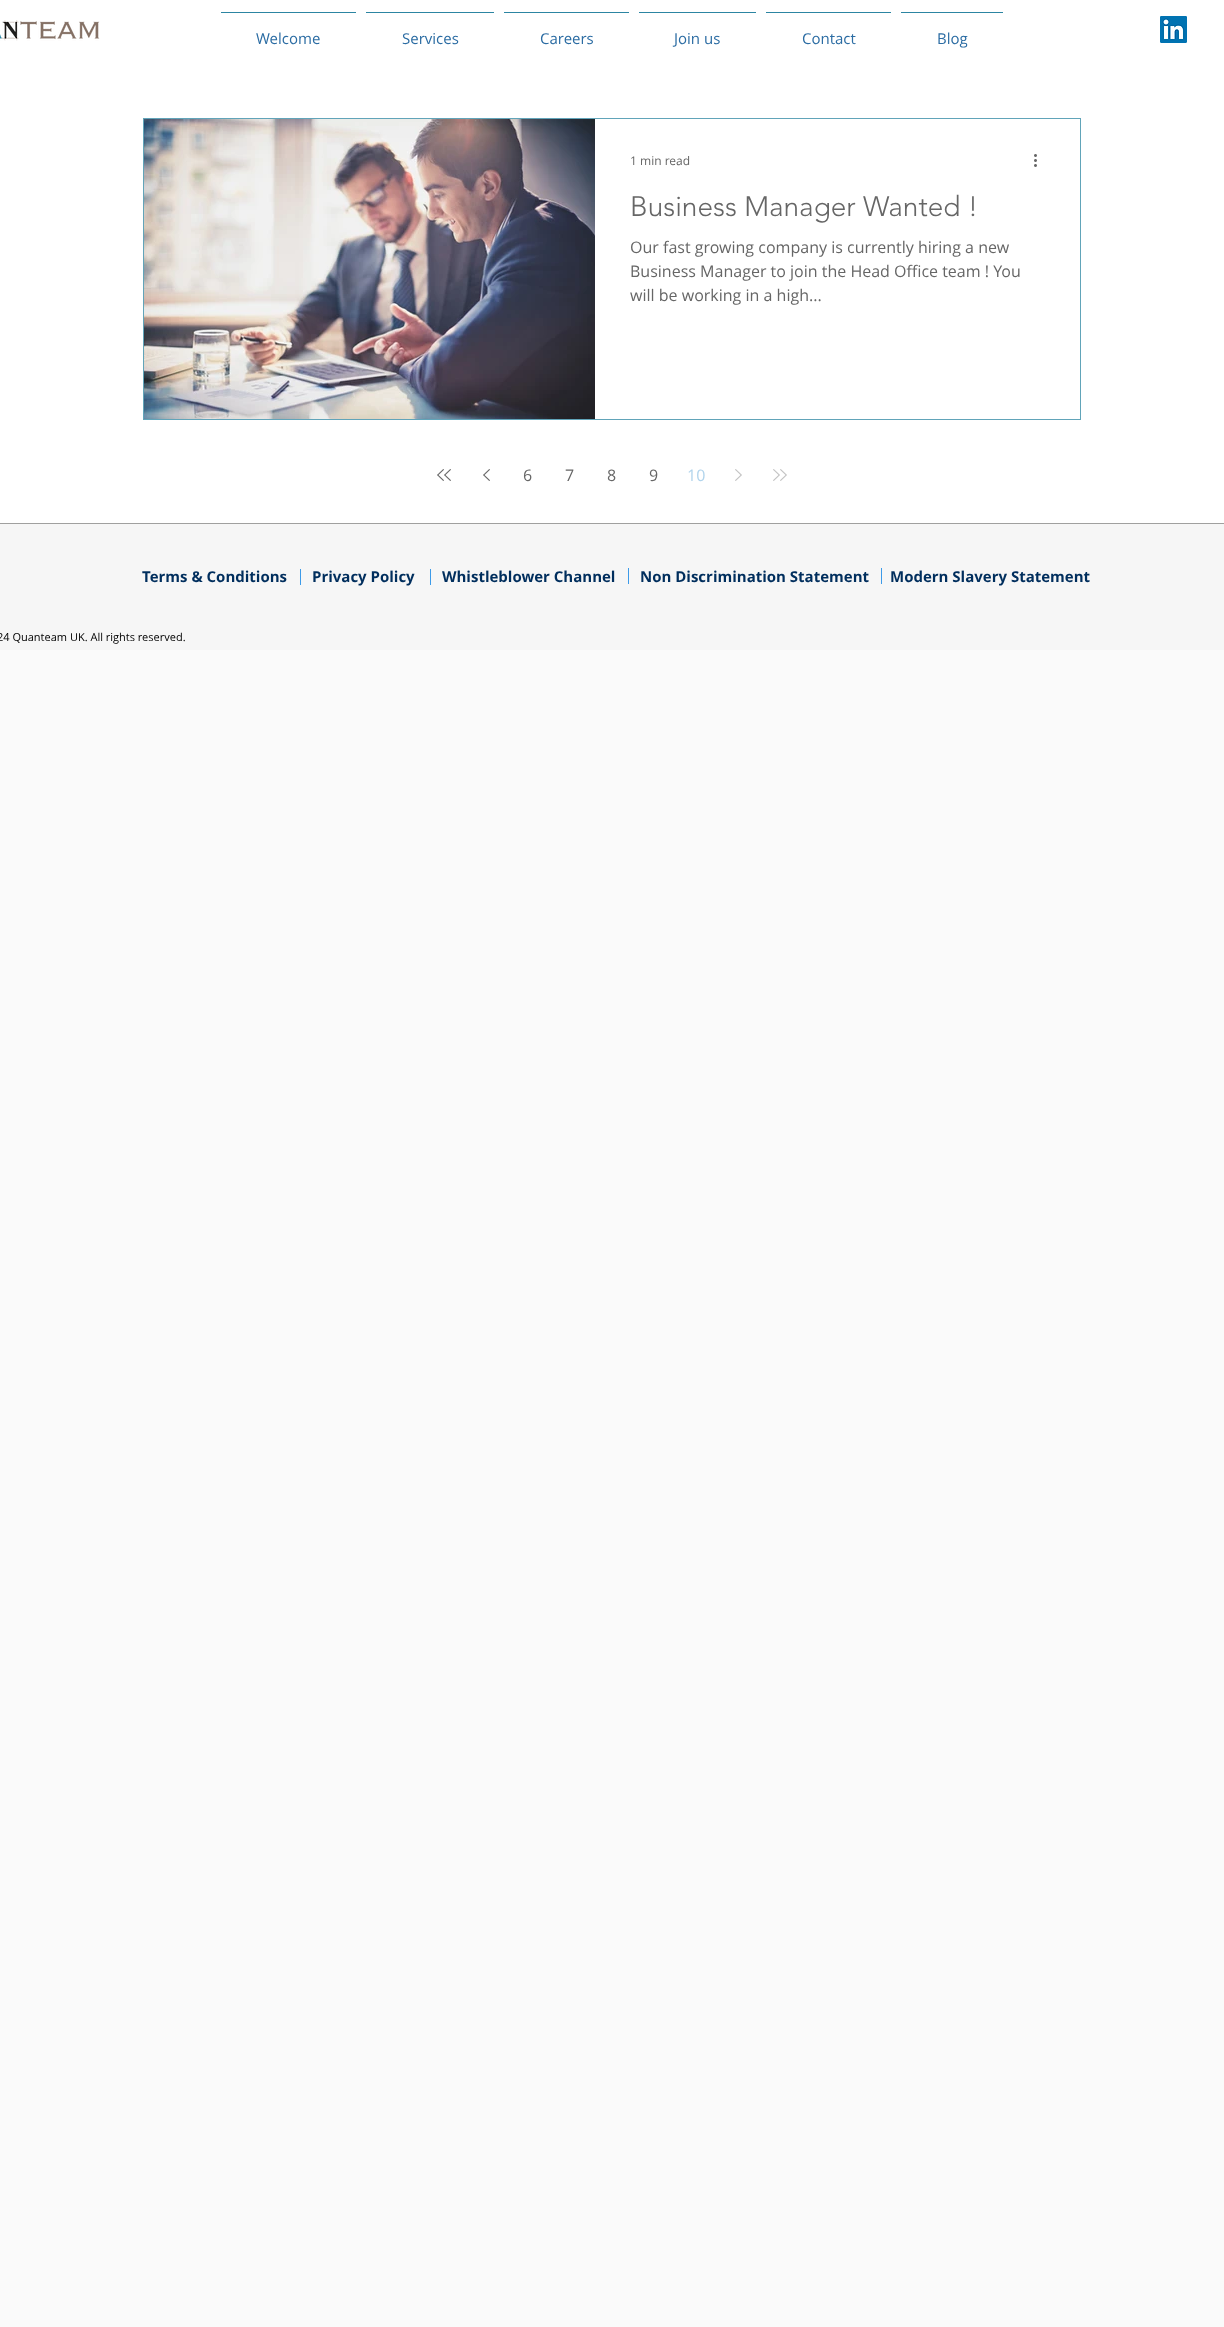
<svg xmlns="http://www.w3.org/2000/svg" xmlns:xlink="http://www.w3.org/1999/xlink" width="1224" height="2327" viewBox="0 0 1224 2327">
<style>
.cls-1{font:15px Open Sans;fill:#2b6ca3}
.cls-2{font:12px Open Sans;fill:#666666}
.cls-3{font:300 28px 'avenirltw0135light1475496';fill:#666666}
.cls-4{font:16px Open Sans;fill:#666666}
.cls-5{font:16px Open Sans;fill:#b1d4ec}
.cls-6{font:bold 15px Open Sans;fill:#002e5d}
.cls-7{font:11px Open Sans;fill:#000000}
</style>
<rect width="100%" height="100%" fill="#fafafa"/>
<rect fill="#ffffff" x="0" y="0" width="1224" height="523"/>
<image xlink:href="image0.png" x="0" y="20" width="100" height="21"/>
<rect fill="#2c85a2" x="221" y="12" width="135" height="1"/>
<rect fill="#2c85a2" x="366" y="12" width="128" height="1"/>
<rect fill="#2c85a2" x="504" y="12" width="125" height="1"/>
<rect fill="#2c85a2" x="639" y="12" width="117" height="1"/>
<rect fill="#2c85a2" x="766" y="12" width="125" height="1"/>
<rect fill="#2c85a2" x="901" y="12" width="102" height="1"/>
<image xlink:href="image1.png" x="1160" y="16" width="27" height="27"/>
<rect fill="none" stroke="#61a4b9" x="143.5" y="118.5" width="937" height="301"/>
<image xlink:href="image2.png" x="144" y="119" width="451" height="300"/>
<image xlink:href="image3.png" x="1034" y="154" width="3" height="13"/>
<image xlink:href="image4.png" x="437" y="469" width="7" height="12"/>
<image xlink:href="image4.png" x="444" y="469" width="7" height="12"/>
<image xlink:href="image4.png" x="483" y="469" width="7" height="12"/>
<image xlink:href="image5.png" x="735" y="469" width="7" height="12"/>
<image xlink:href="image5.png" x="773" y="469" width="7" height="12"/>
<image xlink:href="image5.png" x="780" y="469" width="7" height="12"/>
<rect fill="#f6f6f6" x="0" y="524" width="1224" height="126"/>
<rect fill="#a0a09f" x="0" y="523" width="1224" height="1"/>
<rect fill="#3d9be9" x="300" y="569" width="1" height="16"/>
<rect fill="#3d9be9" x="430" y="569" width="1" height="16"/>
<rect fill="#3d9be9" x="628" y="568" width="1" height="16"/>
<rect fill="#3d9be9" x="881" y="568" width="1" height="16"/>
<text class="cls-1" x="256" y="44">Welcome</text>
<text class="cls-1" x="402" y="44">Services</text>
<text class="cls-1" x="540" y="44">Careers</text>
<text class="cls-1" x="674" y="44">Join us</text>
<text class="cls-1" x="802" y="44">Contact</text>
<text class="cls-1" x="937" y="44">Blog</text>
<text class="cls-2" x="630" y="165">1 min read</text>
<text class="cls-3" x="630" y="216">Business Manager Wanted !</text>
<text class="cls-4"><tspan x="630" y="253">Our fast growing company is currently hiring a new</tspan><tspan x="630" y="277">Business Manager to join the Head Office team ! You</tspan><tspan x="630" y="301">will be working in a high...</tspan></text>
<text class="cls-4" x="523" y="481">6</text>
<text class="cls-4" x="565" y="481">7</text>
<text class="cls-4" x="607" y="481">8</text>
<text class="cls-4" x="649" y="481">9</text>
<text class="cls-5" x="687" y="481">10</text>
<text class="cls-6" x="142" y="582">Terms &amp; Conditions</text>
<text class="cls-6" x="312" y="582">Privacy Policy</text>
<text class="cls-6" x="442" y="582">Whistleblower Channel</text>
<text class="cls-6" x="640" y="582">Non Discrimination Statement</text>
<text class="cls-6" x="890" y="582">Modern Slavery Statement</text>
<text class="cls-7" x="-3" y="641">24 Quanteam UK. All rights reserved.</text>
</svg>
